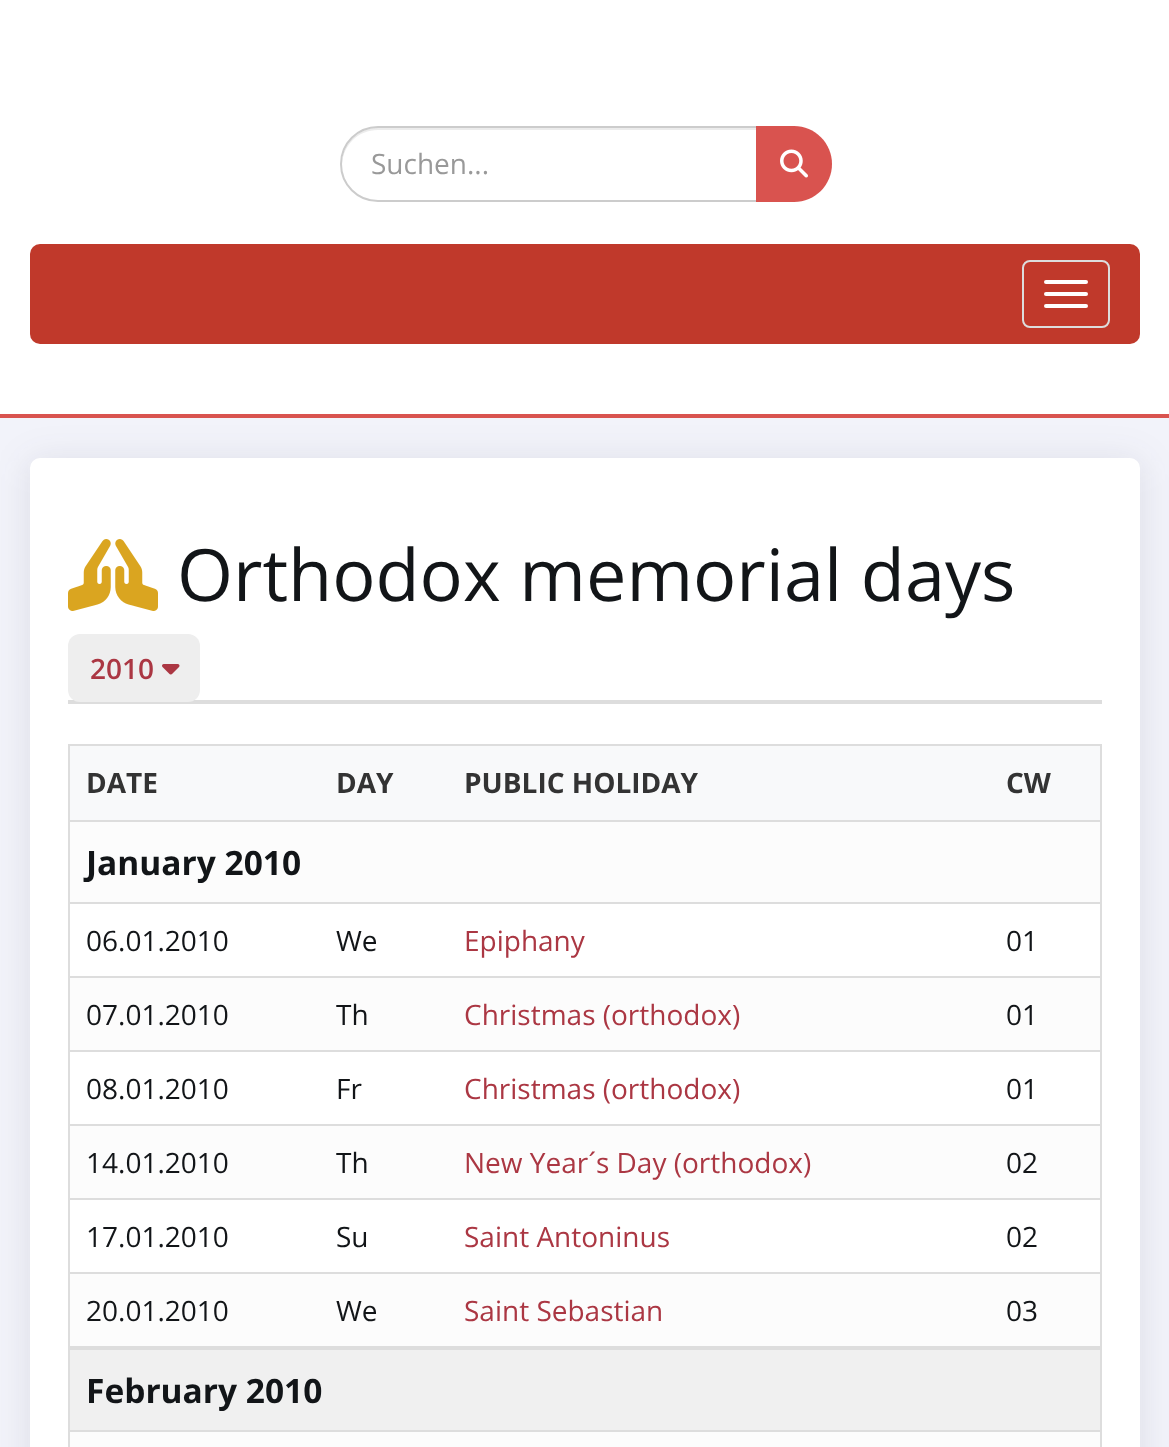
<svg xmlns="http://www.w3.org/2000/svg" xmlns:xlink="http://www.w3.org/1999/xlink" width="1169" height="1447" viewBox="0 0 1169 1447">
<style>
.cls-1{font:28px Open Sans;fill:#999999}
.cls-2{font:72px Open Sans;fill:#121518}
.cls-3{font:600 28px Open Sans;fill:#ab3743}
.cls-4{font:bold 28px Open Sans;fill:#333333}
.cls-5{font:bold 33.5px Open Sans;fill:#121518}
.cls-6{font:28px Open Sans;fill:#121518}
.cls-7{font:28px Open Sans;fill:#ab3743}
</style>
<rect width="100%" height="100%" fill="#f2f3fa"/>
<rect fill="#ffffff" x="0" y="0" width="1169" height="414"/>
<rect fill="#d9534f" x="0" y="414" width="1169" height="4"/>
<path fill="#ececec" d="M378 130H756V128H378C358 128 342 144 342 164V165C343 145 358 130 378 130Z"/>
<path fill="none" stroke="#cccccc" stroke-width="2" d="M378 127H757V201H378C357.5 201 341 184.5 341 164C341 143.5 357.5 127 378 127Z"/>
<path fill="#d9534f" d="M756 126H794C815 126 832 143 832 164C832 185 815 202 794 202H756Z"/>
<image xlink:href="image0.png" x="780" y="149" width="28" height="29"/>
<rect fill="#c0392b" x="30" y="244" width="1110" height="100" rx="10"/>
<rect fill="none" stroke="#dddddd" stroke-width="2" x="1023" y="261" width="86" height="66" rx="7"/>
<rect fill="#ffffff" x="1044" y="280" width="44" height="4" rx="2"/>
<rect fill="#ffffff" x="1044" y="292" width="44" height="4" rx="2"/>
<rect fill="#ffffff" x="1044" y="304" width="44" height="4" rx="2"/>
<rect fill="#313548" fill-opacity="0.1" filter="blur(18px)" x="28" y="460" width="1114" height="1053" rx="12"/>
<rect fill="#ffffff" x="30" y="458" width="1110" height="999" rx="10"/>
<image xlink:href="image1.png" x="68" y="539" width="90" height="72"/>
<rect fill="#dddddd" x="68" y="700" width="1034" height="4"/>
<rect fill="#eeeeee" x="68" y="634" width="132" height="68" rx="12"/>
<image xlink:href="image2.png" x="162" y="664" width="18" height="11"/>
<rect fill="none" stroke="#dddddd" stroke-width="2" x="69" y="745" width="1032" height="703"/>
<rect fill="#f8f9fa" x="70" y="746" width="1030" height="74"/>
<rect fill="#fcfcfc" x="70" y="822" width="1030" height="80"/>
<rect fill="#dddddd" x="70" y="820" width="1030" height="2"/>
<rect fill="#dddddd" x="70" y="902" width="1030" height="2"/>
<rect fill="#fcfcfc" x="70" y="978" width="1030" height="72"/>
<rect fill="#dddddd" x="70" y="976" width="1030" height="2"/>
<rect fill="#dddddd" x="70" y="1050" width="1030" height="2"/>
<rect fill="#fcfcfc" x="70" y="1126" width="1030" height="72"/>
<rect fill="#dddddd" x="70" y="1124" width="1030" height="2"/>
<rect fill="#dddddd" x="70" y="1198" width="1030" height="2"/>
<rect fill="#fcfcfc" x="70" y="1274" width="1030" height="72"/>
<rect fill="#dddddd" x="70" y="1272" width="1030" height="2"/>
<rect fill="#f0f0f0" x="70" y="1350" width="1030" height="80"/>
<rect fill="#dddddd" x="70" y="1346" width="1030" height="4"/>
<rect fill="#fcfcfc" x="70" y="1432" width="1030" height="15"/>
<rect fill="#dddddd" x="70" y="1430" width="1030" height="2"/>
<text class="cls-1" x="371" y="174">Suchen...</text>
<text class="cls-2" x="177" y="601">Orthodox memorial days</text>
<text class="cls-3" x="90" y="679">2010</text>
<text class="cls-4" x="86" y="793">DATE</text>
<text class="cls-4" x="336" y="793">DAY</text>
<text class="cls-4" x="464" y="793">PUBLIC HOLIDAY</text>
<text class="cls-4" x="1006" y="793">CW</text>
<text class="cls-5" x="86" y="875">January 2010</text>
<text class="cls-6" x="86" y="951">06.01.2010</text>
<text class="cls-6" x="336" y="951">We</text>
<text class="cls-7" x="464" y="951">Epiphany</text>
<text class="cls-6" x="1006" y="951">01</text>
<text class="cls-6" x="86" y="1025">07.01.2010</text>
<text class="cls-6" x="336" y="1025">Th</text>
<text class="cls-7" x="464" y="1025">Christmas (orthodox)</text>
<text class="cls-6" x="1006" y="1025">01</text>
<text class="cls-6" x="86" y="1099">08.01.2010</text>
<text class="cls-6" x="336" y="1099">Fr</text>
<text class="cls-7" x="464" y="1099">Christmas (orthodox)</text>
<text class="cls-6" x="1006" y="1099">01</text>
<text class="cls-6" x="86" y="1173">14.01.2010</text>
<text class="cls-6" x="336" y="1173">Th</text>
<text class="cls-7" x="464" y="1173">New Year´s Day (orthodox)</text>
<text class="cls-6" x="1006" y="1173">02</text>
<text class="cls-6" x="86" y="1247">17.01.2010</text>
<text class="cls-6" x="336" y="1247">Su</text>
<text class="cls-7" x="464" y="1247">Saint Antoninus</text>
<text class="cls-6" x="1006" y="1247">02</text>
<text class="cls-6" x="86" y="1321">20.01.2010</text>
<text class="cls-6" x="336" y="1321">We</text>
<text class="cls-7" x="464" y="1321">Saint Sebastian</text>
<text class="cls-6" x="1006" y="1321">03</text>
<text class="cls-5" x="86" y="1403">February 2010</text>
</svg>
